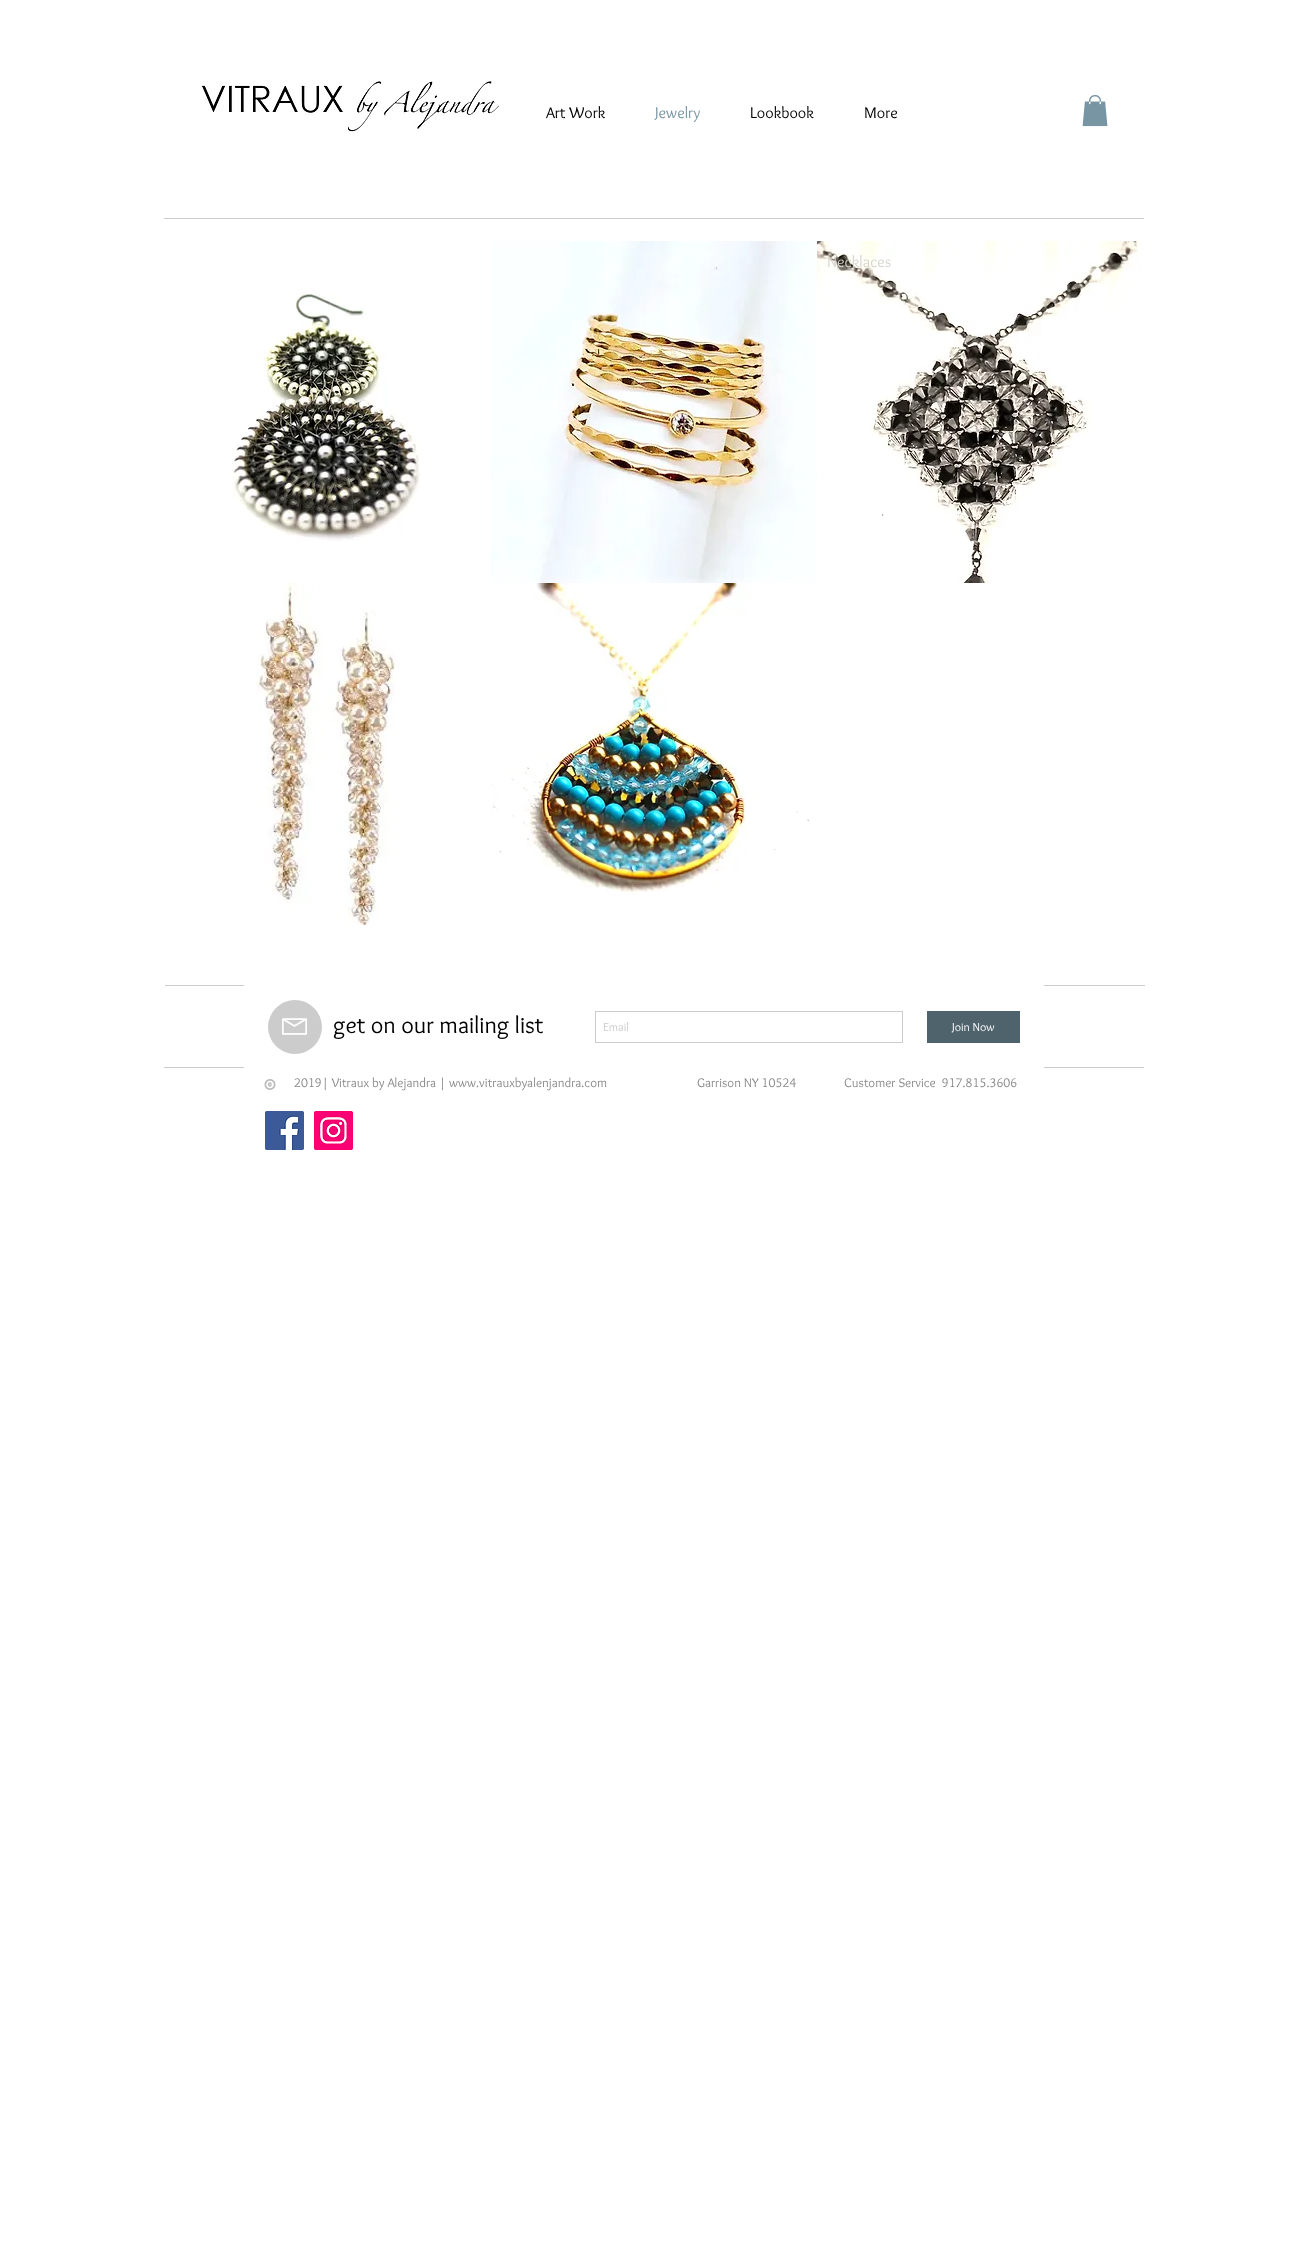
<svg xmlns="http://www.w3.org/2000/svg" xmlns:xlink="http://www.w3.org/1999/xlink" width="1308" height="2268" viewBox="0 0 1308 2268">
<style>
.cls-1{font:16px Overlock;fill:#000000}
.cls-2{font:16px Overlock;fill:#7795a3}
.cls-3{font:16px Overlock;fill:#d6d4ce}
.cls-4{font:24px Overlock;fill:#000000}
.cls-5{font:12px Overlock;fill:#cccccc}
.cls-6{font:12px Overlock;fill:#ffffff}
.cls-7{font:13px Overlock;fill:#8b8a8a}
</style>
<rect width="100%" height="100%" fill="#ffffff"/>
<image xlink:href="image0.png" x="202" y="81" width="298" height="51"/>
<image xlink:href="image1.png" x="1082" y="95" width="26" height="32"/>
<rect fill="#cccccc" x="164" y="218" width="980" height="1"/>
<image xlink:href="image2.png" x="491" y="241" width="326" height="342"/>
<image xlink:href="image3.png" x="817" y="241" width="324" height="342"/>
<image xlink:href="image4.png" x="232" y="293" width="188" height="248"/>
<image xlink:href="image5.png" x="256" y="583" width="140" height="342"/>
<image xlink:href="image6.png" x="491" y="583" width="319" height="312"/>
<rect fill="#cccccc" x="165" y="985" width="980" height="1"/>
<rect fill="#cccccc" x="164" y="1067" width="980" height="1"/>
<rect fill="#ffffff" x="244" y="985" width="800" height="83"/>
<circle fill="#cccccc" cx="295" cy="1027" r="27"/>
<image xlink:href="image7.png" x="282" y="1018" width="25" height="17"/>
<rect fill="none" stroke="#cccccc" x="595.5" y="1011.5" width="307" height="31"/>
<rect fill="#4f636d" x="927" y="1011" width="93" height="32"/>
<image xlink:href="image8.png" x="264" y="1079" width="12" height="11"/>
<image xlink:href="image9.png" x="265" y="1111" width="39" height="39"/>
<image xlink:href="image10.png" x="314" y="1111" width="39" height="39"/>
<text class="cls-1" x="546" y="118">Art Work</text>
<text class="cls-2" x="655" y="118">Jewelry</text>
<text class="cls-1" x="750" y="118">Lookbook</text>
<text class="cls-1" x="864" y="118">More</text>
<text class="cls-3" x="827" y="267">Necklaces</text>
<text class="cls-4" x="333" y="1033">get on our mailing list</text>
<text class="cls-5" x="603" y="1031">Email</text>
<text class="cls-6" x="952" y="1031">Join Now</text>
<text class="cls-7" x="294" y="1087">2019| Vitraux by Alejandra | www.vitrauxbyalenjandra.com</text>
<text class="cls-7" x="697" y="1087">Garrison NY 10524</text>
<text class="cls-7" xml:space="preserve" x="844" y="1087">Customer Service  917.815.3606</text>
</svg>
